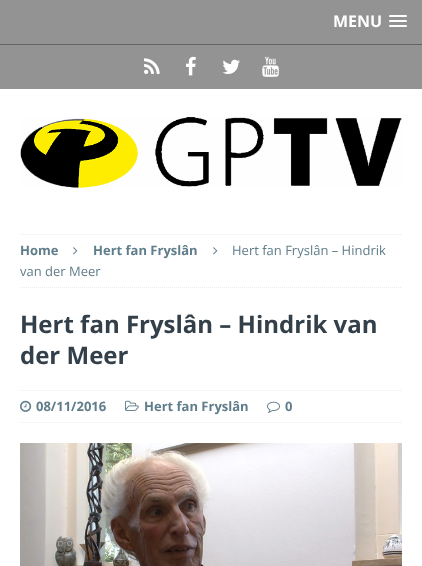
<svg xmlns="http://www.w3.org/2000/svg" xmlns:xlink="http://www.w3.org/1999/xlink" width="422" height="566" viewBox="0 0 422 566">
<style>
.cls-1{font:bold 16px Open Sans;fill:#ffffff}
.cls-2{font:bold 13px Open Sans;fill:#607d8b}
.cls-3{font:13px Open Sans;fill:#607d8b}
.cls-4{font:bold 24px Open Sans;fill:#333f49}
</style>
<rect width="100%" height="100%" fill="#939393"/>
<rect fill="#636363" x="0" y="44" width="422" height="1"/>
<rect fill="#ffffff" x="389" y="15" width="18" height="2" rx="1"/>
<rect fill="#ffffff" x="389" y="20" width="18" height="2" rx="1"/>
<rect fill="#ffffff" x="389" y="25" width="18" height="2" rx="1"/>
<image xlink:href="image0.png" x="144" y="58" width="16" height="16"/>
<image xlink:href="image1.png" x="186" y="56" width="10" height="20"/>
<image xlink:href="image2.png" x="222" y="59" width="18" height="15"/>
<image xlink:href="image3.png" x="262" y="56" width="17" height="21"/>
<rect fill="#ffffff" x="0" y="89" width="422" height="477"/>
<image xlink:href="image4.png" x="20" y="117" width="382" height="71"/>
<path fill="none" stroke="#ebebeb" stroke-dasharray="1 1" d="M20 234.5H402"/>
<path fill="none" stroke="#ebebeb" stroke-dasharray="1 1" d="M20 287.5H402"/>
<image xlink:href="image5.png" x="73" y="247" width="5" height="8"/>
<image xlink:href="image5.png" x="213" y="247" width="5" height="8"/>
<path fill="none" stroke="#ebebeb" stroke-dasharray="1 1" d="M20 390.5H402"/>
<path fill="none" stroke="#ebebeb" stroke-dasharray="1 1" d="M20 422.5H402"/>
<image xlink:href="image6.png" x="20" y="400" width="12" height="12"/>
<image xlink:href="image7.png" x="125" y="400" width="14" height="11"/>
<image xlink:href="image8.png" x="267" y="401" width="13" height="12"/>
<image xlink:href="image9.png" x="20" y="443" width="382" height="123"/>
<text class="cls-1" x="333" y="27">MENU</text>
<text class="cls-2" x="20" y="255">Home</text>
<text class="cls-2" x="93" y="255">Hert fan Fryslân</text>
<text class="cls-3" x="232" y="255">Hert fan Fryslân – Hindrik</text>
<text class="cls-3" x="20" y="276">van der Meer</text>
<text class="cls-4"><tspan x="20" y="333">Hert fan Fryslân – Hindrik van</tspan><tspan x="20" y="364">der Meer</tspan></text>
<text class="cls-2" x="36" y="411">08/11/2016</text>
<text class="cls-2" x="144" y="411">Hert fan Fryslân</text>
<text class="cls-2" x="285" y="411">0</text>
</svg>
